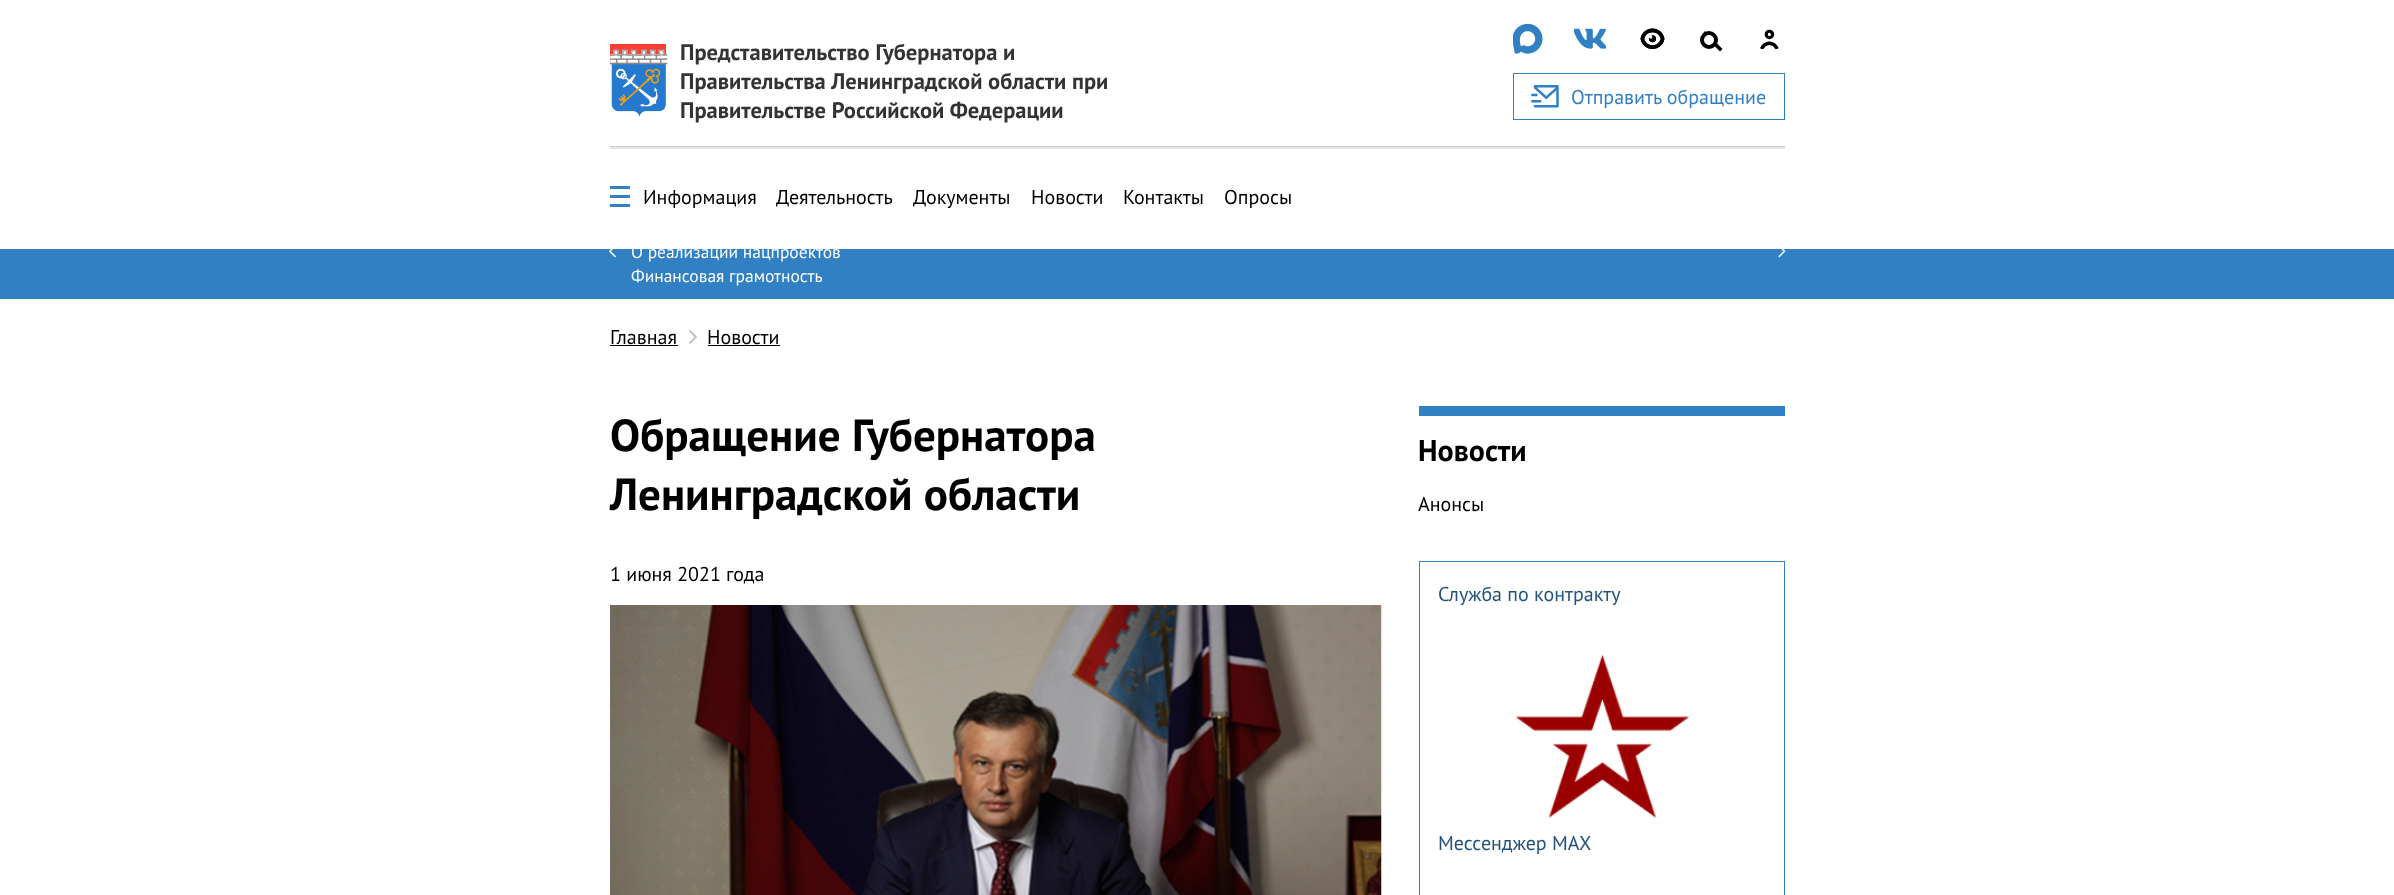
<svg xmlns="http://www.w3.org/2000/svg" xmlns:xlink="http://www.w3.org/1999/xlink" width="2394" height="895" viewBox="0 0 2394 895">
<style>
.cls-1{font:bold 22.5px PT Sans;fill:#333333}
.cls-2{font:20px PT Sans;fill:#3180c4}
.cls-3{font:20px PT Sans;fill:#000000}
.cls-4{font:17.5px PT Sans;fill:#ffffff}
.cls-5{font:bold 45px PT Sans;fill:#000000}
.cls-6{font:bold 30px PT Sans;fill:#000000}
.cls-7{font:20px PT Sans;fill:#23537d}
</style>
<rect width="100%" height="100%" fill="#ffffff"/>
<image xlink:href="image0.png" x="610" y="44" width="58" height="74"/>
<image xlink:href="image1.png" x="1513" y="24" width="30" height="30"/>
<image xlink:href="image2.png" x="1574" y="28" width="32" height="21"/>
<image xlink:href="image3.png" x="1640" y="28" width="25" height="21"/>
<path fill="#000000" d="M1705 31L1722.5 49L1720 51.5L1702.5 34Z"/>
<circle fill="#ffffff" stroke="#000000" stroke-width="4" cx="1709" cy="40" r="7"/>
<image xlink:href="image4.png" x="1760" y="29" width="19" height="20"/>
<rect fill="none" stroke="#3180c4" x="1513.5" y="73.5" width="271" height="46"/>
<image xlink:href="image5.png" x="1531" y="85" width="28" height="23"/>
<rect fill="#e6e6e6" x="610" y="147" width="1175" height="2"/>
<rect fill="#cfcfcf" x="610" y="146" width="1175" height="1"/>
<rect fill="#3180c4" x="610" y="186" width="20" height="3"/>
<rect fill="#3180c4" x="610" y="195" width="20" height="3"/>
<rect fill="#3180c4" x="610" y="204" width="20" height="3"/>
<rect fill="#3180c4" x="0" y="249" width="2394" height="50"/>
<image xlink:href="image6.png" x="609" y="249" width="7" height="9"/>
<image xlink:href="image7.png" x="1778" y="249" width="8" height="9"/>
<rect fill="#000000" x="610" y="345" width="68" height="1"/>
<image xlink:href="image8.png" x="689" y="330" width="8" height="14"/>
<rect fill="#000000" x="708" y="345" width="72" height="1"/>
<image xlink:href="image9.png" x="610" y="605" width="772" height="290"/>
<rect fill="#3180c4" x="1419" y="406" width="366" height="10"/>
<rect fill="none" stroke="#3180c4" x="1419.5" y="561.5" width="365" height="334"/>
<image xlink:href="image10.png" x="1515" y="655" width="174" height="163"/>
<text class="cls-1"><tspan x="680" y="60">Представительство Губернатора и</tspan><tspan x="680" y="89">Правительства Ленинградской области при</tspan><tspan x="680" y="118">Правительстве Российской Федерации</tspan></text>
<text class="cls-2" x="1571" y="104">Отправить обращение</text>
<text class="cls-3" x="643" y="204">Информация</text>
<text class="cls-3" x="776" y="204">Деятельность</text>
<text class="cls-3" x="913" y="204">Документы</text>
<text class="cls-3" x="1031" y="204">Новости</text>
<text class="cls-3" x="1123" y="204">Контакты</text>
<text class="cls-3" x="1224" y="204">Опросы</text>
<text class="cls-4"><tspan x="631" y="258">О реализации нацпроектов</tspan><tspan x="631" y="282">Финансовая грамотность</tspan></text>
<text class="cls-3" x="610" y="344">Главная</text>
<text class="cls-3" x="707" y="344">Новости</text>
<text class="cls-5"><tspan x="610" y="451">Обращение Губернатора</tspan><tspan x="610" y="510">Ленинградской области</tspan></text>
<text class="cls-3" x="610" y="581">1 июня 2021 года</text>
<text class="cls-6" x="1418" y="461">Новости</text>
<text class="cls-3" x="1418" y="511">Анонсы</text>
<text class="cls-7" x="1438" y="601">Служба по контракту</text>
<text class="cls-7" x="1438" y="850">Мессенджер MAX</text>
</svg>
